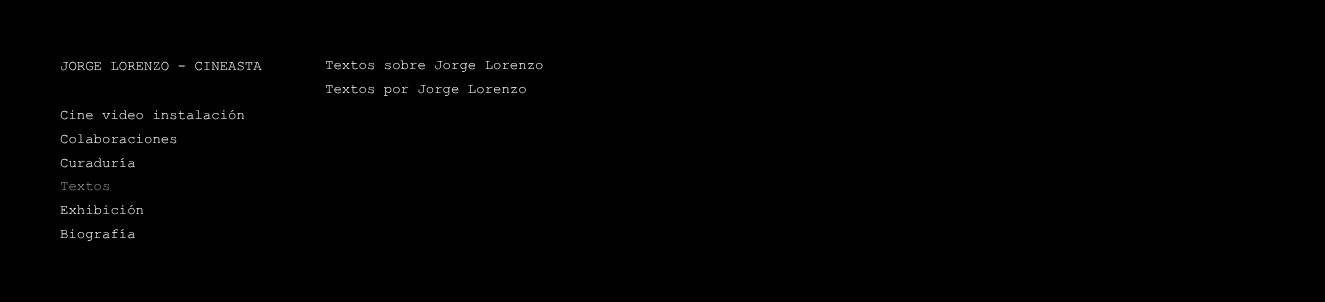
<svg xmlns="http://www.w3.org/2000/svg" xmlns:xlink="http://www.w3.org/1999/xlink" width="1325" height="302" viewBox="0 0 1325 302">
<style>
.cls-1{font:14px Courier New;fill:#ffffff}
.cls-2{font:14px Courier New;fill:#999999}
</style>
<rect width="100%" height="100%" fill="#000000"/>
<text class="cls-1" x="60" y="70">JORGE LORENZO - CINEASTA</text>
<text class="cls-1"><tspan x="60" y="119">Cine video instalación</tspan><tspan x="60" y="143">Colaboraciones</tspan><tspan x="60" y="167">Curaduría</tspan></text>
<text class="cls-2" x="60" y="190">Textos</text>
<text class="cls-1"><tspan x="60" y="214">Exhibición</tspan><tspan x="60" y="238">Biografía</tspan></text>
<text class="cls-1"><tspan x="325" y="69">Textos sobre Jorge Lorenzo</tspan><tspan x="325" y="93">Textos por Jorge Lorenzo</tspan></text>
</svg>
